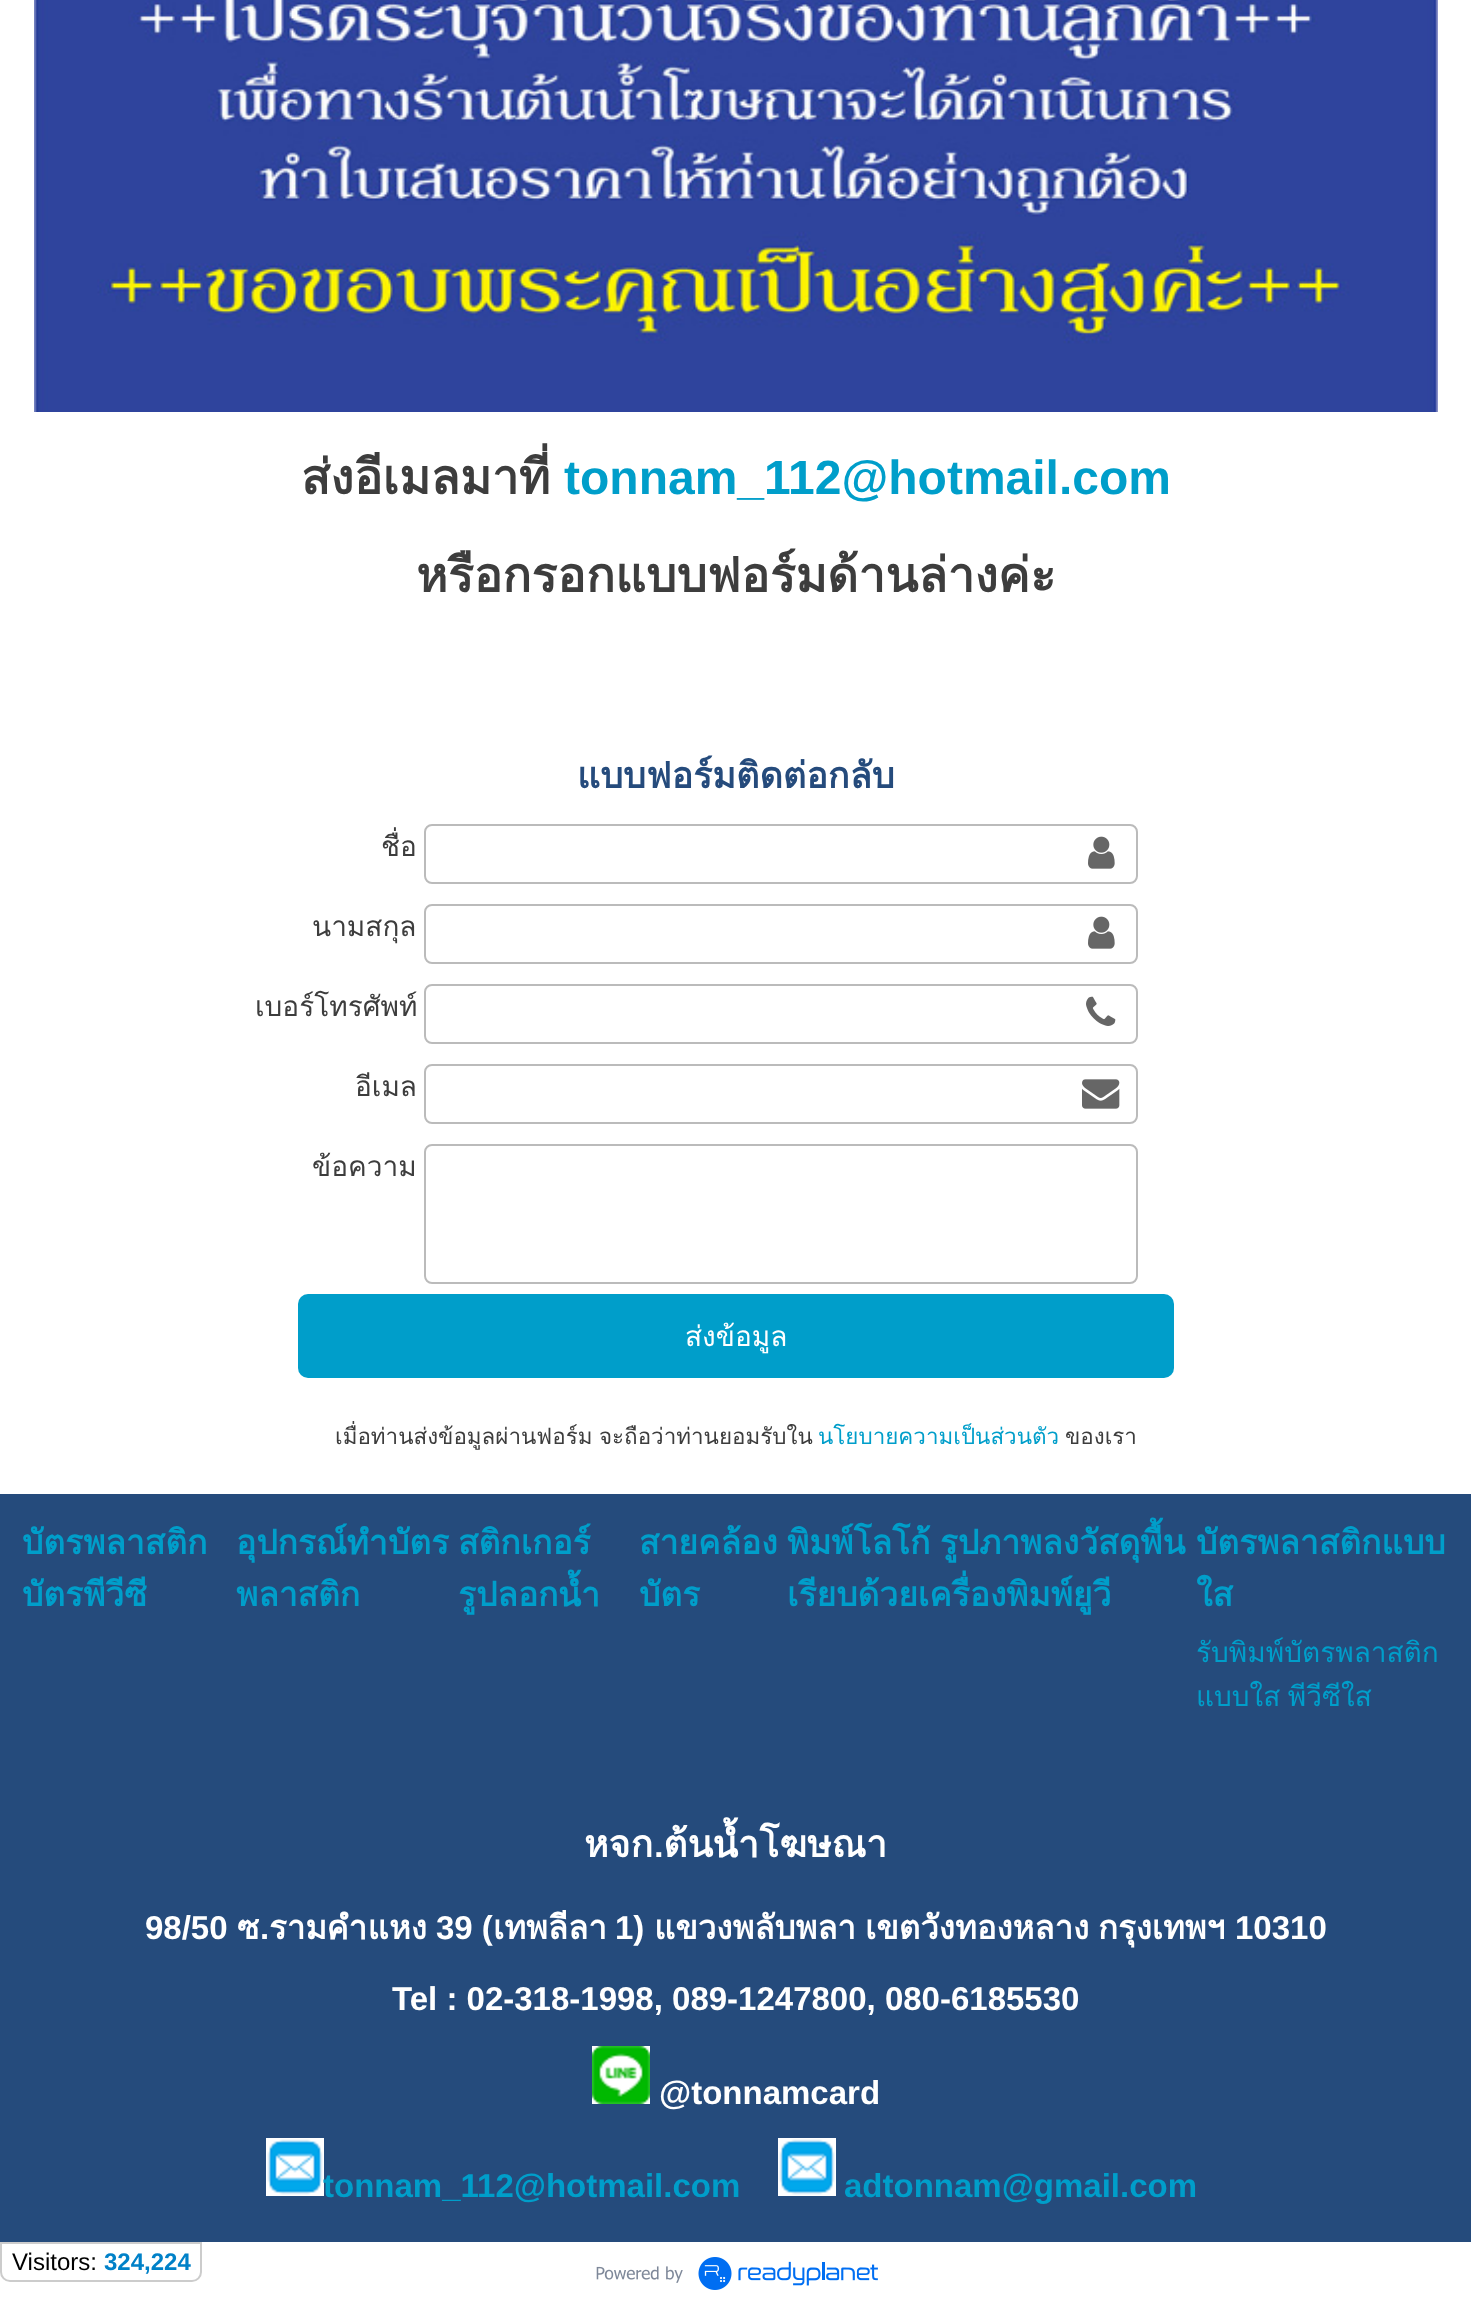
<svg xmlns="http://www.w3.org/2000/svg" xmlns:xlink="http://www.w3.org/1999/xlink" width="1471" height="2306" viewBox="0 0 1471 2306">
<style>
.cls-1{font:bold 48px Loma;fill:#3d3d3d}
.cls-2{font:bold 48px Liberation Sans;fill:#009eca}
.cls-3{font:bold 36px Loma;fill:#254b7c}
.cls-4{font:28px Loma;fill:#3d3d3d}
.cls-5{font:28px Loma;fill:#ffffff}
.cls-6{font:22.4px Loma;fill:#3d3d3d}
.cls-7{font:22.4px Loma;fill:#009eca}
.cls-8{font:bold 33.6px Loma;fill:#009eca}
.cls-9{font:28px Loma;fill:#009eca}
.cls-10{font:bold 37.25px Loma;fill:#ffffff}
.cls-11{font:bold 33px Liberation Sans;fill:#ffffff}
.cls-12{font:bold 33px Loma;fill:#ffffff}
.cls-13{font:bold 33px Liberation Sans;fill:#009eca}
.cls-14{font:24px Liberation Sans;fill:#000000}
.cls-15{font:bold 24px Liberation Sans;fill:#0081c8}
</style>
<rect width="100%" height="100%" fill="#ffffff"/>
<image xlink:href="image0.png" x="34" y="0" width="1404" height="412"/>
<rect fill="none" stroke="#bbbbbb" stroke-width="2" x="425" y="825" width="712" height="58" rx="7"/>
<image xlink:href="image1.png" x="1088" y="836" width="27" height="33"/>
<rect fill="none" stroke="#bbbbbb" stroke-width="2" x="425" y="905" width="712" height="58" rx="7"/>
<image xlink:href="image1.png" x="1088" y="916" width="27" height="33"/>
<rect fill="none" stroke="#bbbbbb" stroke-width="2" x="425" y="985" width="712" height="58" rx="7"/>
<image xlink:href="image2.png" x="1086" y="996" width="30" height="30"/>
<rect fill="none" stroke="#bbbbbb" stroke-width="2" x="425" y="1065" width="712" height="58" rx="7"/>
<image xlink:href="image3.png" x="1082" y="1079" width="38" height="30"/>
<rect fill="none" stroke="#bbbbbb" stroke-width="2" x="425" y="1145" width="712" height="138" rx="7"/>
<rect fill="#009eca" x="298" y="1294" width="876" height="84" rx="10"/>
<rect fill="#254b7c" x="0" y="1494" width="1471" height="748"/>
<image xlink:href="image4.png" x="592" y="2046" width="58" height="58"/>
<image xlink:href="image5.png" x="266" y="2138" width="58" height="58"/>
<image xlink:href="image5.png" x="778" y="2138" width="58" height="58"/>
<path fill="none" stroke="#cccccc" stroke-width="2" d="M1 2243H201V2272C201 2277 197 2281 192 2281H10C5 2281 1 2277 1 2272Z"/>
<image xlink:href="image6.png" x="596" y="2257" width="282" height="33"/>
<text class="cls-1" x="301" y="494">ส่งอีเมลมาที่</text>
<text class="cls-2" x="564" y="494">tonnam_112@hotmail.com</text>
<text class="cls-1" x="416" y="592">หรือกรอกแบบฟอร์มด้านล่างค่ะ</text>
<text class="cls-3" x="577" y="788">แบบฟอร์มติดต่อกลับ</text>
<text class="cls-4" x="381" y="856">ชื่อ</text>
<text class="cls-4" x="312" y="936">นามสกุล</text>
<text class="cls-4" x="255" y="1016">เบอร์โทรศัพท์</text>
<text class="cls-4" x="355" y="1096">อีเมล</text>
<text class="cls-4" x="312" y="1176">ข้อความ</text>
<text class="cls-5" x="685" y="1346">ส่งข้อมูล</text>
<text class="cls-6" x="335" y="1444" word-spacing="-1">เมื่อท่านส่งข้อมูลผ่านฟอร์ม จะถือว่าท่านยอมรับใน</text>
<text class="cls-7" x="818" y="1444">นโยบายความเป็นส่วนตัว</text>
<text class="cls-6" x="1065" y="1444">ของเรา</text>
<text class="cls-8"><tspan x="22" y="1554">บัตรพลาสติก</tspan><tspan x="22" y="1606">บัตรพีวีซี</tspan></text>
<text class="cls-8"><tspan x="236" y="1554">อุปกรณ์ทำบัตร</tspan><tspan x="236" y="1606">พลาสติก</tspan></text>
<text class="cls-8"><tspan x="458" y="1554">สติกเกอร์</tspan><tspan x="458" y="1606">รูปลอกน้ำ</tspan></text>
<text class="cls-8"><tspan x="639" y="1554">สายคล้อง</tspan><tspan x="639" y="1606">บัตร</tspan></text>
<text class="cls-8"><tspan x="787" y="1554" word-spacing="-2">พิมพ์โลโก้ รูปภาพลงวัสดุพื้น</tspan><tspan x="787" y="1606">เรียบด้วยเครื่องพิมพ์ยูวี</tspan></text>
<text class="cls-8"><tspan x="1196" y="1554">บัตรพลาสติกแบบ</tspan><tspan x="1196" y="1606">ใส</tspan></text>
<text class="cls-9"><tspan x="1196" y="1662">รับพิมพ์บัตรพลาสติก</tspan><tspan x="1196" y="1706" word-spacing="-2">แบบใส พีวีซีใส</tspan></text>
<text class="cls-10" x="584" y="1857">หจก.ต้นน้ำโฆษณา</text>
<text class="cls-11" x="145" y="1939">98/50</text>
<text class="cls-12" x="237" y="1939">ซ</text>
<text class="cls-11" x="260" y="1939">.</text>
<text class="cls-12" x="269" y="1939">รามคำแหง</text>
<text class="cls-11" x="436" y="1939">39 (</text>
<text class="cls-12" x="493" y="1939">เทพลีลา</text>
<text class="cls-11" x="615" y="1939">1)</text>
<text class="cls-12" x="654" y="1939">แขวงพลับพลา</text>
<text class="cls-12" x="865" y="1939">เขตวังทองหลาง</text>
<text class="cls-12" x="1098" y="1939">กรุงเทพฯ</text>
<text class="cls-11" x="1235" y="1939">10310</text>
<text class="cls-11" x="392" y="2010">Tel : 02-318-1998, 089-1247800, 080-6185530</text>
<text class="cls-11" x="659" y="2104">@tonnamcard</text>
<text class="cls-13" x="323" y="2197">tonnam_112@hotmail.com</text>
<text class="cls-13" x="844" y="2197">adtonnam@gmail.com</text>
<text class="cls-14" x="12" y="2270">Visitors:</text>
<text class="cls-15" x="104" y="2270">324,224</text>
</svg>
